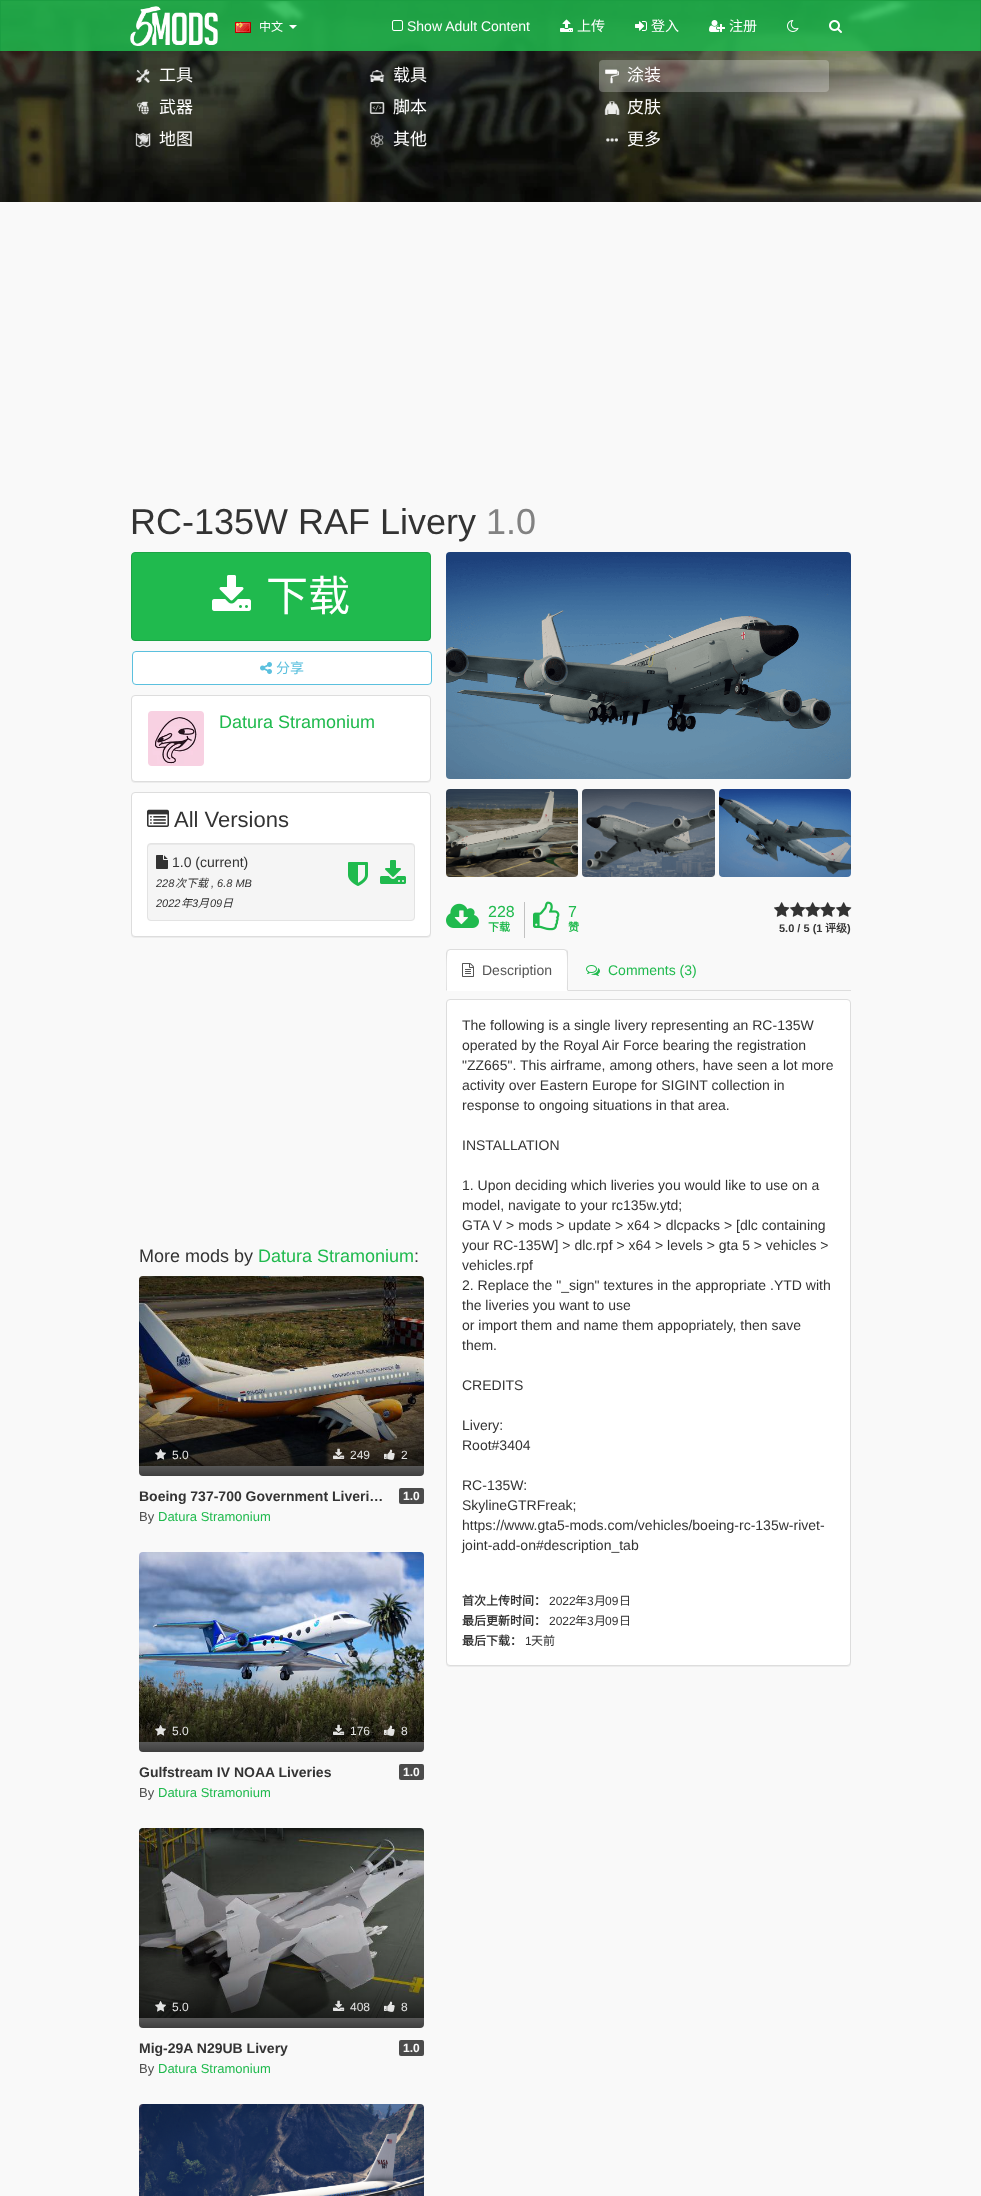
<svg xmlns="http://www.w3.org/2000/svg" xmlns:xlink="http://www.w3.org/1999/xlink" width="981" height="2196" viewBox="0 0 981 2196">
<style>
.cls-1{font:12px Noto Sans CJK SC;fill:#ffffff}
.cls-2{font:14px Liberation Sans;fill:#ffffff}
.cls-3{font:14px Noto Sans CJK SC;fill:#ffffff}
.cls-4{font:17px Noto Sans CJK SC;fill:#ffffff}
.cls-5{font:36px Liberation Sans;fill:#333333}
.cls-6{font:36px Liberation Sans;fill:#828282}
.cls-7{font:42px Noto Sans CJK SC;fill:#ffffff}
.cls-8{font:14px Noto Sans CJK SC;fill:#5bc0de}
.cls-9{font:18px Liberation Sans;fill:#20ba4e}
.cls-10{font:22px Liberation Sans;fill:#333333}
.cls-11{font:14px Liberation Sans;fill:#333333}
.cls-12{font:italic 11px Liberation Sans;fill:#333333}
.cls-13{font:italic 11px Noto Sans CJK SC;fill:#333333}
.cls-14{font:18px Liberation Sans;fill:#333333}
.cls-15{font:12px Liberation Sans;fill:#e3e3e3}
.cls-16{font:bold 14px Liberation Sans;fill:#333333}
.cls-17{font:bold 12px Liberation Sans;fill:#f9f9f9}
.cls-18{font:13px Liberation Sans;fill:#4b4b4b}
.cls-19{font:13px Liberation Sans;fill:#20ba4e}
.cls-20{font:16px Liberation Sans;fill:#20ba4e}
.cls-21{font:bold 11px Noto Sans CJK SC;fill:#20ba4e}
.cls-22{font:bold 11px Liberation Sans;fill:#333333}
.cls-23{font:bold 11px Noto Sans CJK SC;fill:#333333}
.cls-24{font:14px Liberation Sans;fill:#555555}
.cls-25{font:14px Liberation Sans;fill:#20ba4e}
.cls-26{font:bold 12px Noto Sans CJK SC;fill:#333333}
.cls-27{font:12px Liberation Sans;fill:#333333}
.cls-28{font:12px Noto Sans CJK SC;fill:#333333}
</style>
<defs>
<linearGradient id="g1" gradientUnits="userSpaceOnUse" x1="282" y1="1276" x2="282" y2="1476"><stop offset="0.5" stop-color="#000000" stop-opacity="0"/><stop offset="0.75" stop-color="#000000" stop-opacity="0.25"/><stop offset="1" stop-color="#000000" stop-opacity="0.75"/></linearGradient>
<linearGradient id="g2" gradientUnits="userSpaceOnUse" x1="282" y1="1552" x2="282" y2="1752"><stop offset="0.5" stop-color="#000000" stop-opacity="0"/><stop offset="0.75" stop-color="#000000" stop-opacity="0.25"/><stop offset="1" stop-color="#000000" stop-opacity="0.75"/></linearGradient>
<linearGradient id="g3" gradientUnits="userSpaceOnUse" x1="282" y1="1828" x2="282" y2="2028"><stop offset="0.5" stop-color="#000000" stop-opacity="0"/><stop offset="0.75" stop-color="#000000" stop-opacity="0.25"/><stop offset="1" stop-color="#000000" stop-opacity="0.75"/></linearGradient>
</defs>
<rect width="100%" height="100%" fill="#f9f9f9"/>
<image xlink:href="image8.png" x="0" y="1" width="981" height="201"/>
<rect fill="#20ba4e" fill-opacity="0.85" x="1" y="1" width="979" height="50"/>
<rect fill="#1b9e42" x="0" y="0" width="981" height="1"/>
<rect fill="#1b9e42" x="980" y="0" width="1" height="51"/>
<rect fill="#1b9e42" x="0" y="0" width="1" height="51"/>
<image xlink:href="image0.png" x="130" y="6" width="88" height="40"/>
<image xlink:href="image1.png" x="235" y="22" width="16" height="11"/>
<path fill="#ffffff" d="M289 25H297L293 29Z"/>
<image xlink:href="image2.png" x="392" y="20" width="11" height="11"/>
<image xlink:href="image3.png" x="560" y="19" width="13" height="13"/>
<image xlink:href="image4.png" x="635" y="21" width="12" height="10"/>
<image xlink:href="image5.png" x="709" y="20" width="16" height="12"/>
<image xlink:href="image6.png" x="787" y="20" width="12" height="12"/>
<image xlink:href="image7.png" x="829" y="20" width="13" height="13"/>
<image xlink:href="image9.png" x="136" y="69" width="14" height="14"/>
<image xlink:href="image10.png" x="369" y="70" width="16" height="12"/>
<rect fill="#ffffff" fill-opacity="0.25" x="599" y="60" width="230" height="32" rx="4"/>
<image xlink:href="image11.png" x="605" y="69" width="14" height="15"/>
<image xlink:href="image12.png" x="137" y="101" width="12" height="14"/>
<image xlink:href="image13.png" x="369" y="102" width="16" height="12"/>
<image xlink:href="image14.png" x="604" y="101" width="16" height="14"/>
<image xlink:href="image15.png" x="135" y="132" width="16" height="16"/>
<image xlink:href="image16.png" x="370" y="132" width="14" height="16"/>
<image xlink:href="image17.png" x="606" y="138" width="12" height="4"/>
<rect fill="#20ba4e" stroke="#1ca445" x="131.5" y="552.5" width="299" height="88" rx="3.5"/>
<image xlink:href="image18.png" x="212" y="575" width="39" height="36"/>
<rect fill="#ffffff" stroke="#5bc0de" x="132.5" y="651.5" width="299" height="33" rx="3.5"/>
<image xlink:href="image19.png" x="260" y="662" width="12" height="12"/>
<rect fill="#000000" fill-opacity="0.05" filter="blur(0.5px)" x="131" y="696" width="300" height="87" rx="4"/>
<rect fill="#ffffff" stroke="#dddddd" x="131.5" y="695.5" width="299" height="86" rx="3.5"/>
<image xlink:href="image20.png" x="148" y="711" width="56" height="55"/>
<rect fill="#000000" fill-opacity="0.05" filter="blur(0.5px)" x="131" y="793" width="300" height="145" rx="4"/>
<rect fill="#ffffff" stroke="#dddddd" x="131.5" y="792.5" width="299" height="144" rx="3.5"/>
<image xlink:href="image21.png" x="147" y="809" width="22" height="18"/>
<rect fill="#f5f5f5" x="147" y="843" width="268" height="78" rx="4"/>
<path fill="#e9e9e9" d="M151 845H411C413 845 414 846 414 848V847C414 845 413 844 411 844H151C149 844 148 845 148 847V848C148 846 149 845 151 845Z"/>
<rect fill="none" stroke="#e3e3e3" x="147.5" y="843.5" width="267" height="77" rx="3.5"/>
<image xlink:href="image22.png" x="156" y="855" width="12" height="14"/>
<image xlink:href="image23.png" x="348" y="862" width="20" height="24"/>
<image xlink:href="image24.png" x="380" y="860" width="26" height="24"/>
<image xlink:href="image25.png" x="139" y="1276" width="285" height="190"/>
<rect fill="url(#g1)" x="139" y="1276" width="285" height="200" rx="4"/>
<image xlink:href="image26.png" x="155" y="1449" width="11" height="11"/>
<image xlink:href="image27.png" x="333" y="1448" width="12" height="11"/>
<image xlink:href="image28.png" x="384" y="1449" width="11" height="11"/>
<rect fill="#4b4b4b" x="399" y="1488" width="25" height="16" rx="2"/>
<image xlink:href="image29.png" x="139" y="1552" width="285" height="190"/>
<rect fill="url(#g2)" x="139" y="1552" width="285" height="200" rx="4"/>
<image xlink:href="image30.png" x="155" y="1725" width="11" height="11"/>
<image xlink:href="image31.png" x="333" y="1724" width="12" height="11"/>
<image xlink:href="image32.png" x="384" y="1725" width="11" height="11"/>
<rect fill="#4b4b4b" x="399" y="1764" width="25" height="16" rx="2"/>
<image xlink:href="image33.png" x="139" y="1828" width="285" height="190"/>
<rect fill="url(#g3)" x="139" y="1828" width="285" height="200" rx="4"/>
<image xlink:href="image34.png" x="155" y="2001" width="11" height="11"/>
<image xlink:href="image35.png" x="333" y="2000" width="12" height="11"/>
<image xlink:href="image36.png" x="384" y="2001" width="11" height="11"/>
<rect fill="#4b4b4b" x="399" y="2040" width="25" height="16" rx="2"/>
<image xlink:href="image37.png" x="139" y="2104" width="285" height="92"/>
<image xlink:href="image38.png" x="446" y="552" width="405" height="227"/>
<image xlink:href="image39.png" x="446" y="789" width="132" height="88"/>
<image xlink:href="image40.png" x="582" y="789" width="133" height="88"/>
<image xlink:href="image41.png" x="719" y="789" width="132" height="88"/>
<image xlink:href="image42.png" x="446" y="903" width="33" height="25"/>
<rect fill="#c2c2c2" x="524" y="902" width="1" height="36"/>
<image xlink:href="image43.png" x="533" y="901" width="27" height="30"/>
<image xlink:href="image44.png" x="774" y="902" width="16" height="15"/>
<image xlink:href="image44.png" x="790" y="902" width="16" height="15"/>
<image xlink:href="image45.png" x="805" y="902" width="16" height="15"/>
<image xlink:href="image45.png" x="820" y="902" width="16" height="15"/>
<image xlink:href="image44.png" x="836" y="902" width="16" height="15"/>
<rect fill="#dddddd" x="568" y="990" width="283" height="1"/>
<path fill="#ffffff" d="M450 949H564C566 949 568 951 568 953V991H446V953C446 951 448 949 450 949Z"/>
<path fill="#dddddd" d="M450 949L447 950L448 951L450 950H564L566 951L567 950L564 949Z"/>
<path fill="#dddddd" d="M568 991V953C568 952 568 951 567 950L566 951C568 953 567 985 567 990Z"/>
<path fill="#dddddd" d="M446 991L447 990C447 985 446 953 448 951L447 950L446 953Z"/>
<image xlink:href="image46.png" x="462" y="963" width="12" height="14"/>
<image xlink:href="image47.png" x="586" y="965" width="14" height="11"/>
<rect fill="#000000" fill-opacity="0.05" filter="blur(0.5px)" x="446" y="1000" width="405" height="667" rx="4"/>
<rect fill="#ffffff" stroke="#dddddd" x="446.5" y="999.5" width="404" height="666" rx="3.5"/>
<text class="cls-1" x="259" y="31">中文</text>
<text class="cls-2" x="407" y="31">Show Adult Content</text>
<text class="cls-3" x="577" y="31">上传</text>
<text class="cls-3" x="651" y="31">登入</text>
<text class="cls-3" x="729" y="31">注册</text>
<text class="cls-4" x="159" y="81">工具</text>
<text class="cls-4" x="393" y="81">载具</text>
<text class="cls-4" x="627" y="81">涂装</text>
<text class="cls-4" x="159" y="113">武器</text>
<text class="cls-4" x="393" y="113">脚本</text>
<text class="cls-4" x="627" y="113">皮肤</text>
<text class="cls-4" x="159" y="145">地图</text>
<text class="cls-4" x="393" y="145">其他</text>
<text class="cls-4" x="627" y="145">更多</text>
<text class="cls-5" x="130" y="534">RC-135W RAF Livery</text>
<text class="cls-6" x="486" y="534">1.0</text>
<text class="cls-7" x="266" y="611">下载</text>
<text class="cls-8" x="276" y="673">分享</text>
<text class="cls-9" x="219" y="728">Datura Stramonium</text>
<text class="cls-10" x="174" y="827">All Versions</text>
<text class="cls-11" x="172" y="867">1.0 (current)</text>
<text class="cls-12" x="156" y="887">228</text>
<text class="cls-13" x="175" y="887">次下载</text>
<text class="cls-12" x="211" y="887">, 6.8 MB</text>
<text class="cls-12" x="156" y="907">2022</text>
<text class="cls-13" x="181" y="907">年</text>
<text class="cls-12" x="192" y="907">3</text>
<text class="cls-13" x="198" y="907">月</text>
<text class="cls-12" x="210" y="907">09</text>
<text class="cls-13" x="222" y="907">日</text>
<text class="cls-14" x="139" y="1262">More mods by</text>
<text class="cls-9" x="258" y="1262">Datura Stramonium</text>
<text class="cls-14" x="414" y="1262">:</text>
<text class="cls-15" x="172" y="1459">5.0</text>
<text class="cls-15" x="350" y="1459">249</text>
<text class="cls-15" x="401" y="1459">2</text>
<text class="cls-16" x="139" y="1501">Boeing 737-700 Government Liveri…</text>
<text class="cls-17" x="403" y="1500">1.0</text>
<text class="cls-18" x="139" y="1521">By</text>
<text class="cls-19" x="158" y="1521">Datura Stramonium</text>
<text class="cls-15" x="172" y="1735">5.0</text>
<text class="cls-15" x="350" y="1735">176</text>
<text class="cls-15" x="401" y="1735">8</text>
<text class="cls-16" x="139" y="1777">Gulfstream IV NOAA Liveries</text>
<text class="cls-17" x="403" y="1776">1.0</text>
<text class="cls-18" x="139" y="1797">By</text>
<text class="cls-19" x="158" y="1797">Datura Stramonium</text>
<text class="cls-15" x="172" y="2011">5.0</text>
<text class="cls-15" x="350" y="2011">408</text>
<text class="cls-15" x="401" y="2011">8</text>
<text class="cls-16" x="139" y="2053">Mig-29A N29UB Livery</text>
<text class="cls-17" x="403" y="2052">1.0</text>
<text class="cls-18" x="139" y="2073">By</text>
<text class="cls-19" x="158" y="2073">Datura Stramonium</text>
<text class="cls-20" x="488" y="917">228</text>
<text class="cls-21" x="488" y="931">下载</text>
<text class="cls-20" x="568" y="917">7</text>
<text class="cls-21" x="568" y="931">赞</text>
<text class="cls-22" x="779" y="932">5.0 / 5 (1</text>
<text class="cls-23" x="825" y="932">评级</text>
<text class="cls-22" x="847" y="932">)</text>
<text class="cls-24" x="482" y="975">Description</text>
<text class="cls-25" x="608" y="975">Comments (3)</text>
<text class="cls-11"><tspan x="462" y="1030">The following is a single livery representing an RC-135W</tspan><tspan x="462" y="1050">operated by the Royal Air Force bearing the registration</tspan><tspan x="462" y="1070">"ZZ665". This airframe, among others, have seen a lot more</tspan><tspan x="462" y="1090">activity over Eastern Europe for SIGINT collection in</tspan><tspan x="462" y="1110">response to ongoing situations in that area.</tspan></text>
<text class="cls-11" x="462" y="1150">INSTALLATION</text>
<text class="cls-11"><tspan x="462" y="1190">1. Upon deciding which liveries you would like to use on a</tspan><tspan x="462" y="1210">model, navigate to your rc135w.ytd;</tspan><tspan x="462" y="1230">GTA V &gt; mods &gt; update &gt; x64 &gt; dlcpacks &gt; [dlc containing</tspan><tspan x="462" y="1250">your RC-135W] &gt; dlc.rpf &gt; x64 &gt; levels &gt; gta 5 &gt; vehicles &gt;</tspan><tspan x="462" y="1270">vehicles.rpf</tspan><tspan x="462" y="1290">2. Replace the "_sign" textures in the appropriate .YTD with</tspan><tspan x="462" y="1310">the liveries you want to use</tspan><tspan x="462" y="1330">or import them and name them appopriately, then save</tspan><tspan x="462" y="1350">them.</tspan></text>
<text class="cls-11" x="462" y="1390">CREDITS</text>
<text class="cls-11"><tspan x="462" y="1430">Livery:</tspan><tspan x="462" y="1450">Root#3404</tspan></text>
<text class="cls-11"><tspan x="462" y="1490">RC-135W:</tspan><tspan x="462" y="1510">SkylineGTRFreak;</tspan><tspan x="462" y="1530">https://www.gta5-mods.com/vehicles/boeing-rc-135w-rivet-</tspan><tspan x="462" y="1550">joint-add-on#description_tab</tspan></text>
<text class="cls-26" x="462" y="1605">首次上传时间：</text>
<text class="cls-27" x="549" y="1605">2022</text>
<text class="cls-28" x="575" y="1605">年</text>
<text class="cls-27" x="587" y="1605">3</text>
<text class="cls-28" x="594" y="1605">月</text>
<text class="cls-27" x="605" y="1605">09</text>
<text class="cls-28" x="619" y="1605">日</text>
<text class="cls-26" x="462" y="1625">最后更新时间：</text>
<text class="cls-27" x="549" y="1625">2022</text>
<text class="cls-28" x="575" y="1625">年</text>
<text class="cls-27" x="587" y="1625">3</text>
<text class="cls-28" x="594" y="1625">月</text>
<text class="cls-27" x="605" y="1625">09</text>
<text class="cls-28" x="619" y="1625">日</text>
<text class="cls-26" x="462" y="1645">最后下载：</text>
<text class="cls-27" x="525" y="1645">1</text>
<text class="cls-28" x="531" y="1645">天前</text>
</svg>
